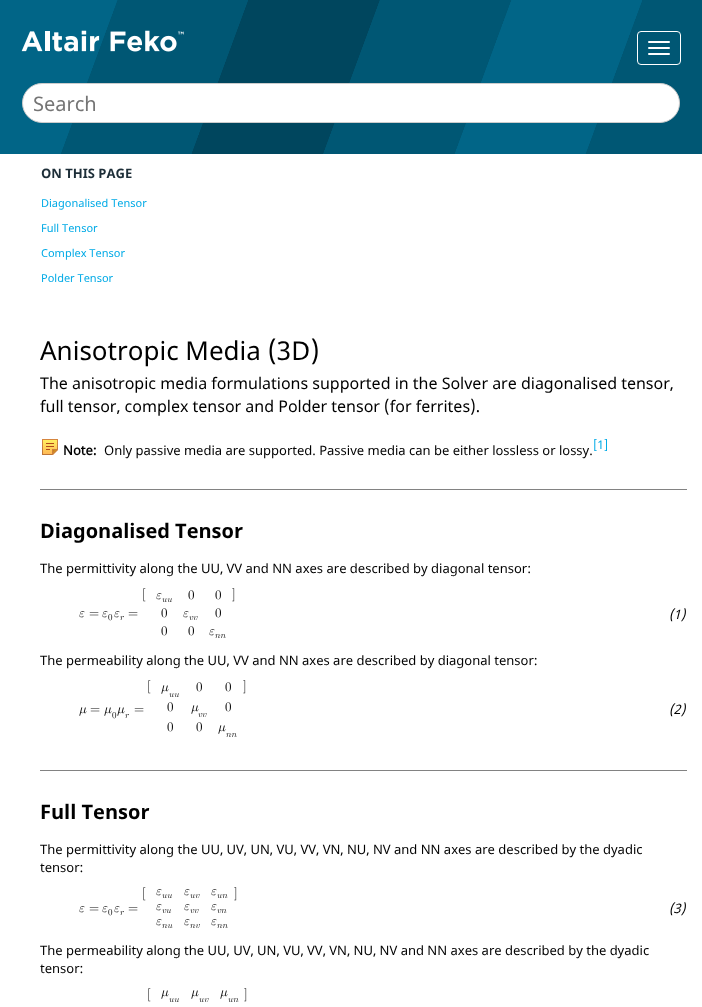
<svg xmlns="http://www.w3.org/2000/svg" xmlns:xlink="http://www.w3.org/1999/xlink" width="702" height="1007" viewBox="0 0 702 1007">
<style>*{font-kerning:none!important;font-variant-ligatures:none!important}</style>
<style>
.cls-1{font:20px Noto Sans;fill:#757575}
.cls-2{font:bold 13px Noto Sans;fill:#1d2e38}
.cls-3{font:11px Noto Sans;fill:#00aae6}
.cls-4{font:26px Noto Sans;fill:#000000}
.cls-5{font:16px Noto Sans;fill:#000000}
.cls-6{font:bold 13px 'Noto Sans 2';fill:#000000}
.cls-7{font:13px Noto Sans;fill:#000000}
.cls-8{font:12px Noto Sans;fill:#00aae6}
.cls-9{font:bold 20px Noto Sans;fill:#000000}
.cls-10{font:13px Latin Modern Math;fill:#000000}
.cls-11{font:9px Latin Modern Math;fill:#000000}
.cls-12{font:italic 13px Noto Sans;fill:#000000}
</style>
<rect width="100%" height="100%" fill="#ffffff"/>
<image xlink:href="image0.png" x="0" y="0" width="702" height="154"/>
<image xlink:href="image1.png" x="21" y="30" width="163" height="22"/>
<rect fill="none" stroke="#ffffff" x="637.5" y="31.5" width="43" height="33" rx="3.5"/>
<rect fill="#ffffff" x="648" y="41" width="22" height="2" rx="1"/>
<rect fill="#ffffff" x="648" y="47" width="22" height="2" rx="1"/>
<rect fill="#ffffff" x="648" y="53" width="22" height="2" rx="1"/>
<rect fill="#ffffff" stroke="#cccccc" x="22.5" y="83.5" width="657" height="39" rx="19.5"/>
<image xlink:href="image2.png" x="42" y="439" width="16" height="16"/>
<rect fill="#828282" x="40" y="489" width="647" height="1"/>
<rect fill="#828282" x="40" y="770" width="647" height="1"/>
<text class="cls-1" x="33" y="111">Search</text>
<text class="cls-2" x="41" y="178">ON THIS PAGE</text>
<text class="cls-3" x="41" y="207">Diagonalised Tensor</text>
<text class="cls-3" x="41" y="232">Full Tensor</text>
<text class="cls-3" x="41" y="257">Complex Tensor</text>
<text class="cls-3" x="41" y="282">Polder Tensor</text>
<text class="cls-4" x="40" y="360">Anisotropic Media (3D)</text>
<text class="cls-5"><tspan x="40" y="389">The anisotropic media formulations supported in the Solver are diagonalised tensor,</tspan><tspan x="40" y="412">full tensor, complex tensor and Polder tensor (for ferrites).</tspan></text>
<text class="cls-6" x="63" y="455">Note:</text>
<text class="cls-7" x="104" y="455">Only passive media are supported. Passive media can be either lossless or lossy.</text>
<text class="cls-8" x="593" y="449">[1]</text>
<text class="cls-9" x="40" y="538">Diagonalised Tensor</text>
<text class="cls-7" x="40" y="573">The permittivity along the UU, VV and NN axes are described by diagonal tensor:</text>
<text class="cls-10" x="79" y="617">𝜀</text>
<text class="cls-10" x="89" y="617">=</text>
<text class="cls-10" x="102" y="617">𝜀</text>
<text class="cls-11" x="108" y="620">0</text>
<text class="cls-10" x="114" y="617">𝜀</text>
<text class="cls-11" x="120" y="620">𝑟</text>
<text class="cls-10" x="128" y="617">=</text>
<text class="cls-10" x="142" y="598">[</text>
<text class="cls-10" x="156" y="599">𝜀</text>
<text class="cls-11" x="162" y="602">𝑢𝑢</text>
<text class="cls-10" x="188" y="599">0</text>
<text class="cls-10" x="215" y="599">0</text>
<text class="cls-10" x="161" y="617">0</text>
<text class="cls-10" x="183" y="617">𝜀</text>
<text class="cls-11" x="189" y="620">𝑣𝑣</text>
<text class="cls-10" x="215" y="617">0</text>
<text class="cls-10" x="161" y="635">0</text>
<text class="cls-10" x="188" y="635">0</text>
<text class="cls-10" x="209" y="635">𝜀</text>
<text class="cls-11" x="215" y="638">𝑛𝑛</text>
<text class="cls-10" x="232" y="598">]</text>
<text class="cls-12" x="669" y="619">(1)</text>
<text class="cls-7" x="40" y="665">The permeability along the UU, VV and NN axes are described by diagonal tensor:</text>
<text class="cls-10" x="79" y="713">𝜇</text>
<text class="cls-10" x="90" y="713">=</text>
<text class="cls-10" x="104" y="713">𝜇</text>
<text class="cls-11" x="112" y="718">0</text>
<text class="cls-10" x="117" y="713">𝜇</text>
<text class="cls-11" x="125" y="718">𝑟</text>
<text class="cls-10" x="134" y="713">=</text>
<text class="cls-10" x="147" y="690">[</text>
<text class="cls-10" x="161" y="691">𝜇</text>
<text class="cls-11" x="169" y="697">𝑢𝑢</text>
<text class="cls-10" x="196" y="691">0</text>
<text class="cls-10" x="225" y="691">0</text>
<text class="cls-10" x="167" y="711">0</text>
<text class="cls-10" x="191" y="711">𝜇</text>
<text class="cls-11" x="198" y="717">𝑣𝑣</text>
<text class="cls-10" x="225" y="711">0</text>
<text class="cls-10" x="167" y="731">0</text>
<text class="cls-10" x="196" y="731">0</text>
<text class="cls-10" x="218" y="731">𝜇</text>
<text class="cls-11" x="226" y="737">𝑛𝑛</text>
<text class="cls-10" x="243" y="690">]</text>
<text class="cls-12" x="669" y="714">(2)</text>
<text class="cls-9" x="40" y="819">Full Tensor</text>
<text class="cls-7"><tspan x="40" y="854">The permittivity along the UU, UV, UN, VU, VV, VN, NU, NV and NN axes are described by the dyadic</tspan><tspan x="40" y="872">tensor:</tspan></text>
<text class="cls-10" x="79" y="912">𝜀</text>
<text class="cls-10" x="89" y="912">=</text>
<text class="cls-10" x="102" y="912">𝜀</text>
<text class="cls-11" x="108" y="915">0</text>
<text class="cls-10" x="114" y="912">𝜀</text>
<text class="cls-11" x="120" y="915">𝑟</text>
<text class="cls-10" x="128" y="912">=</text>
<text class="cls-10" x="142" y="897">[</text>
<text class="cls-10" x="156" y="895">𝜀</text>
<text class="cls-11" x="162" y="898">𝑢𝑢</text>
<text class="cls-10" x="184" y="895">𝜀</text>
<text class="cls-11" x="190" y="898">𝑢𝑣</text>
<text class="cls-10" x="211" y="895">𝜀</text>
<text class="cls-11" x="217" y="898">𝑢𝑛</text>
<text class="cls-10" x="156" y="910">𝜀</text>
<text class="cls-11" x="162" y="913">𝑣𝑢</text>
<text class="cls-10" x="184" y="910">𝜀</text>
<text class="cls-11" x="190" y="913">𝑣𝑣</text>
<text class="cls-10" x="211" y="910">𝜀</text>
<text class="cls-11" x="217" y="913">𝑣𝑛</text>
<text class="cls-10" x="156" y="925">𝜀</text>
<text class="cls-11" x="162" y="928">𝑛𝑢</text>
<text class="cls-10" x="184" y="925">𝜀</text>
<text class="cls-11" x="190" y="928">𝑛𝑣</text>
<text class="cls-10" x="211" y="925">𝜀</text>
<text class="cls-11" x="217" y="928">𝑛𝑛</text>
<text class="cls-10" x="234" y="897">]</text>
<text class="cls-12" x="669" y="913">(3)</text>
<text class="cls-7"><tspan x="40" y="955">The permeability along the UU, UV, UN, VU, VV, VN, NU, NV and NN axes are described by the dyadic</tspan><tspan x="40" y="973">tensor:</tspan></text>
<text class="cls-10" x="147" y="998">[</text>
<text class="cls-10" x="161" y="996">𝜇</text>
<text class="cls-11" x="169" y="1002">𝑢𝑢</text>
<text class="cls-10" x="191" y="996">𝜇</text>
<text class="cls-11" x="199" y="1002">𝑢𝑣</text>
<text class="cls-10" x="220" y="996">𝜇</text>
<text class="cls-11" x="228" y="1002">𝑢𝑛</text>
<text class="cls-10" x="244" y="998">]</text>
</svg>
